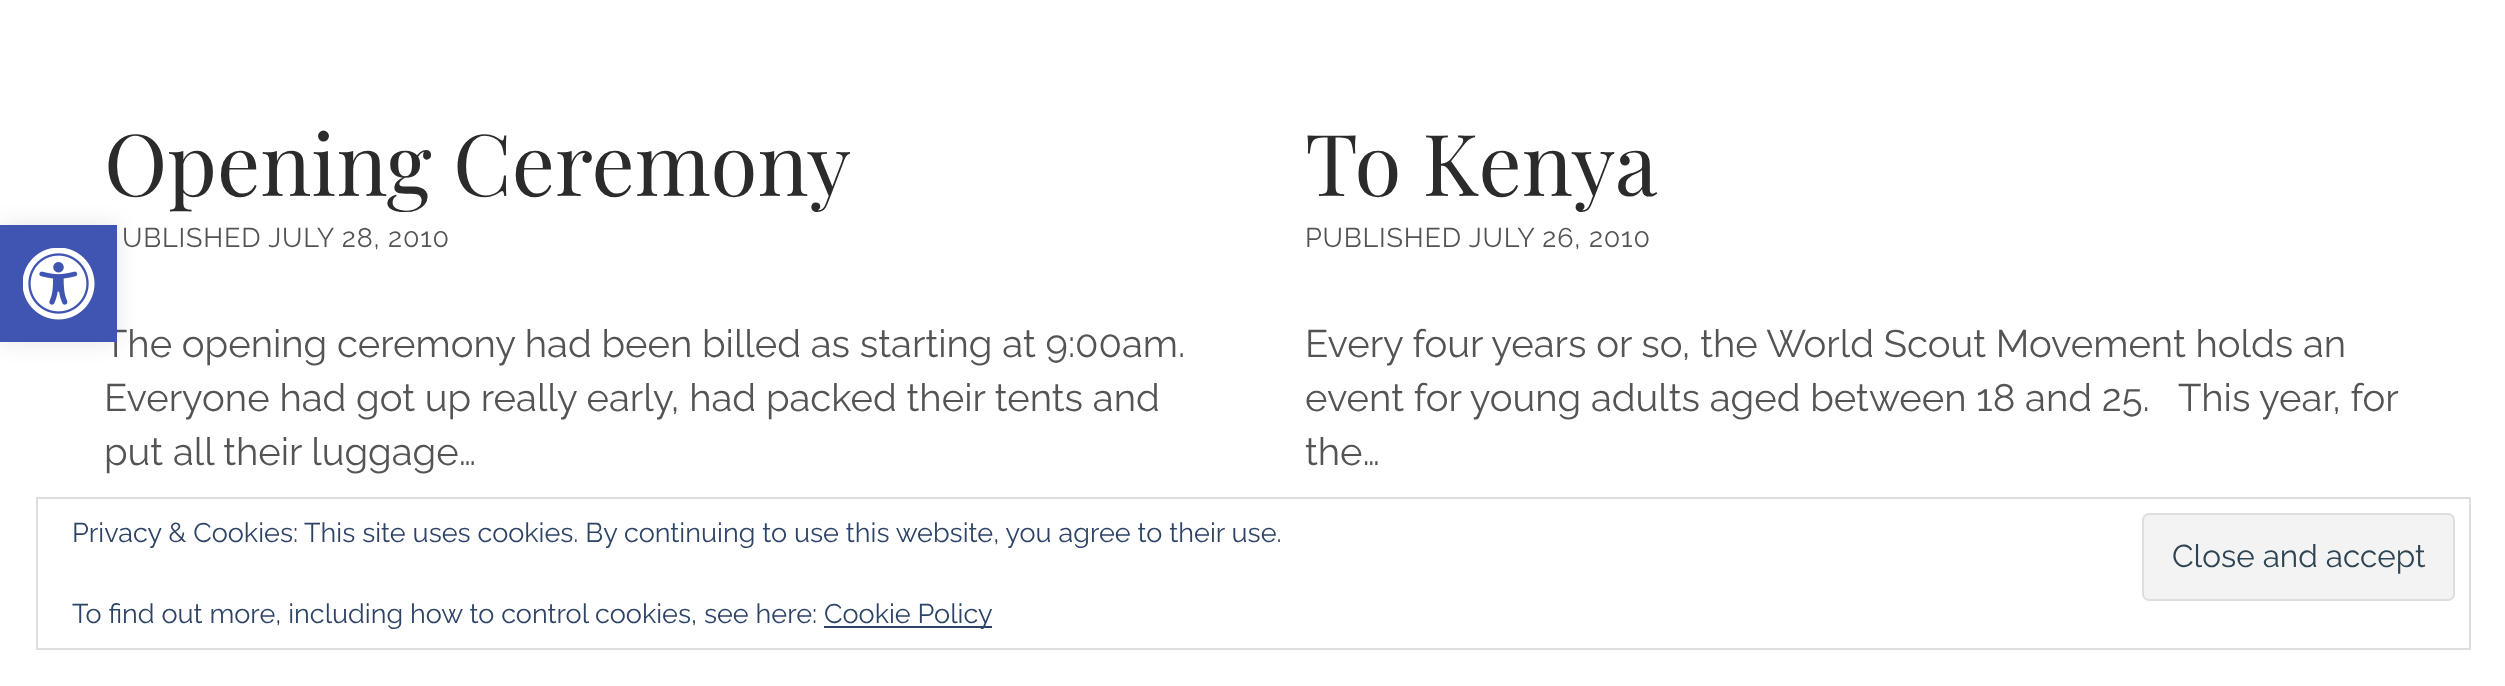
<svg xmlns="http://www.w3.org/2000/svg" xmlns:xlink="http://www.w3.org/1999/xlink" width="2505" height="686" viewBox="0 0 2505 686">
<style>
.cls-1{font:85.5px Playfair Display;fill:#2b2b2b}
.cls-2{font:27px Raleway;letter-spacing:0.8px;fill:#545454}
.cls-3{font:38.25px Raleway;fill:#545454}
.cls-4{font:27px Raleway;fill:#2e4467}
.cls-5{font:31.5px Raleway;fill:#2e4453}
</style>
<rect width="100%" height="100%" fill="#ffffff"/>
<rect fill="#000000" fill-opacity="0.1" filter="blur(11px)" x="0" y="225" width="117" height="117"/>
<rect fill="none" stroke="#dedede" stroke-width="2" x="37" y="498" width="2433" height="151"/>
<rect fill="#f3f3f3" stroke="#dedede" stroke-width="2" x="2143" y="514" width="311" height="86" rx="6"/>
<rect fill="#2e4467" x="824" y="626" width="168" height="2"/>
<text class="cls-1" x="104" y="196">Opening Ceremony</text>
<text class="cls-2" x="122" y="247">UBLISHED JULY 28, 2010</text>
<text class="cls-3" x="104" y="357">The opening ceremony had been billed as starting at 9:00am.</text>
<rect fill="#4054b2" x="0" y="225" width="117" height="117"/>
<image xlink:href="image0.png" x="23" y="248" width="72" height="72"/>
<text class="cls-3"><tspan x="104" y="411">Everyone had got up really early, had packed their tents and</tspan><tspan x="104" y="465">put all their luggage…</tspan></text>
<text class="cls-1" x="1305" y="196">To Kenya</text>
<text class="cls-2" x="1305" y="247">PUBLISHED JULY 26, 2010</text>
<text class="cls-3" xml:space="preserve"><tspan x="1305" y="357">Every four years or so, the World Scout Movement holds an</tspan><tspan x="1305" y="411">event for young adults aged between 18 and 25.   This year, for</tspan><tspan x="1305" y="465">the…</tspan></text>
<text class="cls-4" x="72" y="542">Privacy &amp; Cookies: This site uses cookies. By continuing to use this website, you agree to their use.</text>
<text class="cls-5" x="2172" y="567">Close and accept</text>
<text class="cls-4" x="72" y="623">To find out more, including how to control cookies, see here:</text>
<text class="cls-4" x="824" y="623">Cookie Policy</text>
</svg>
